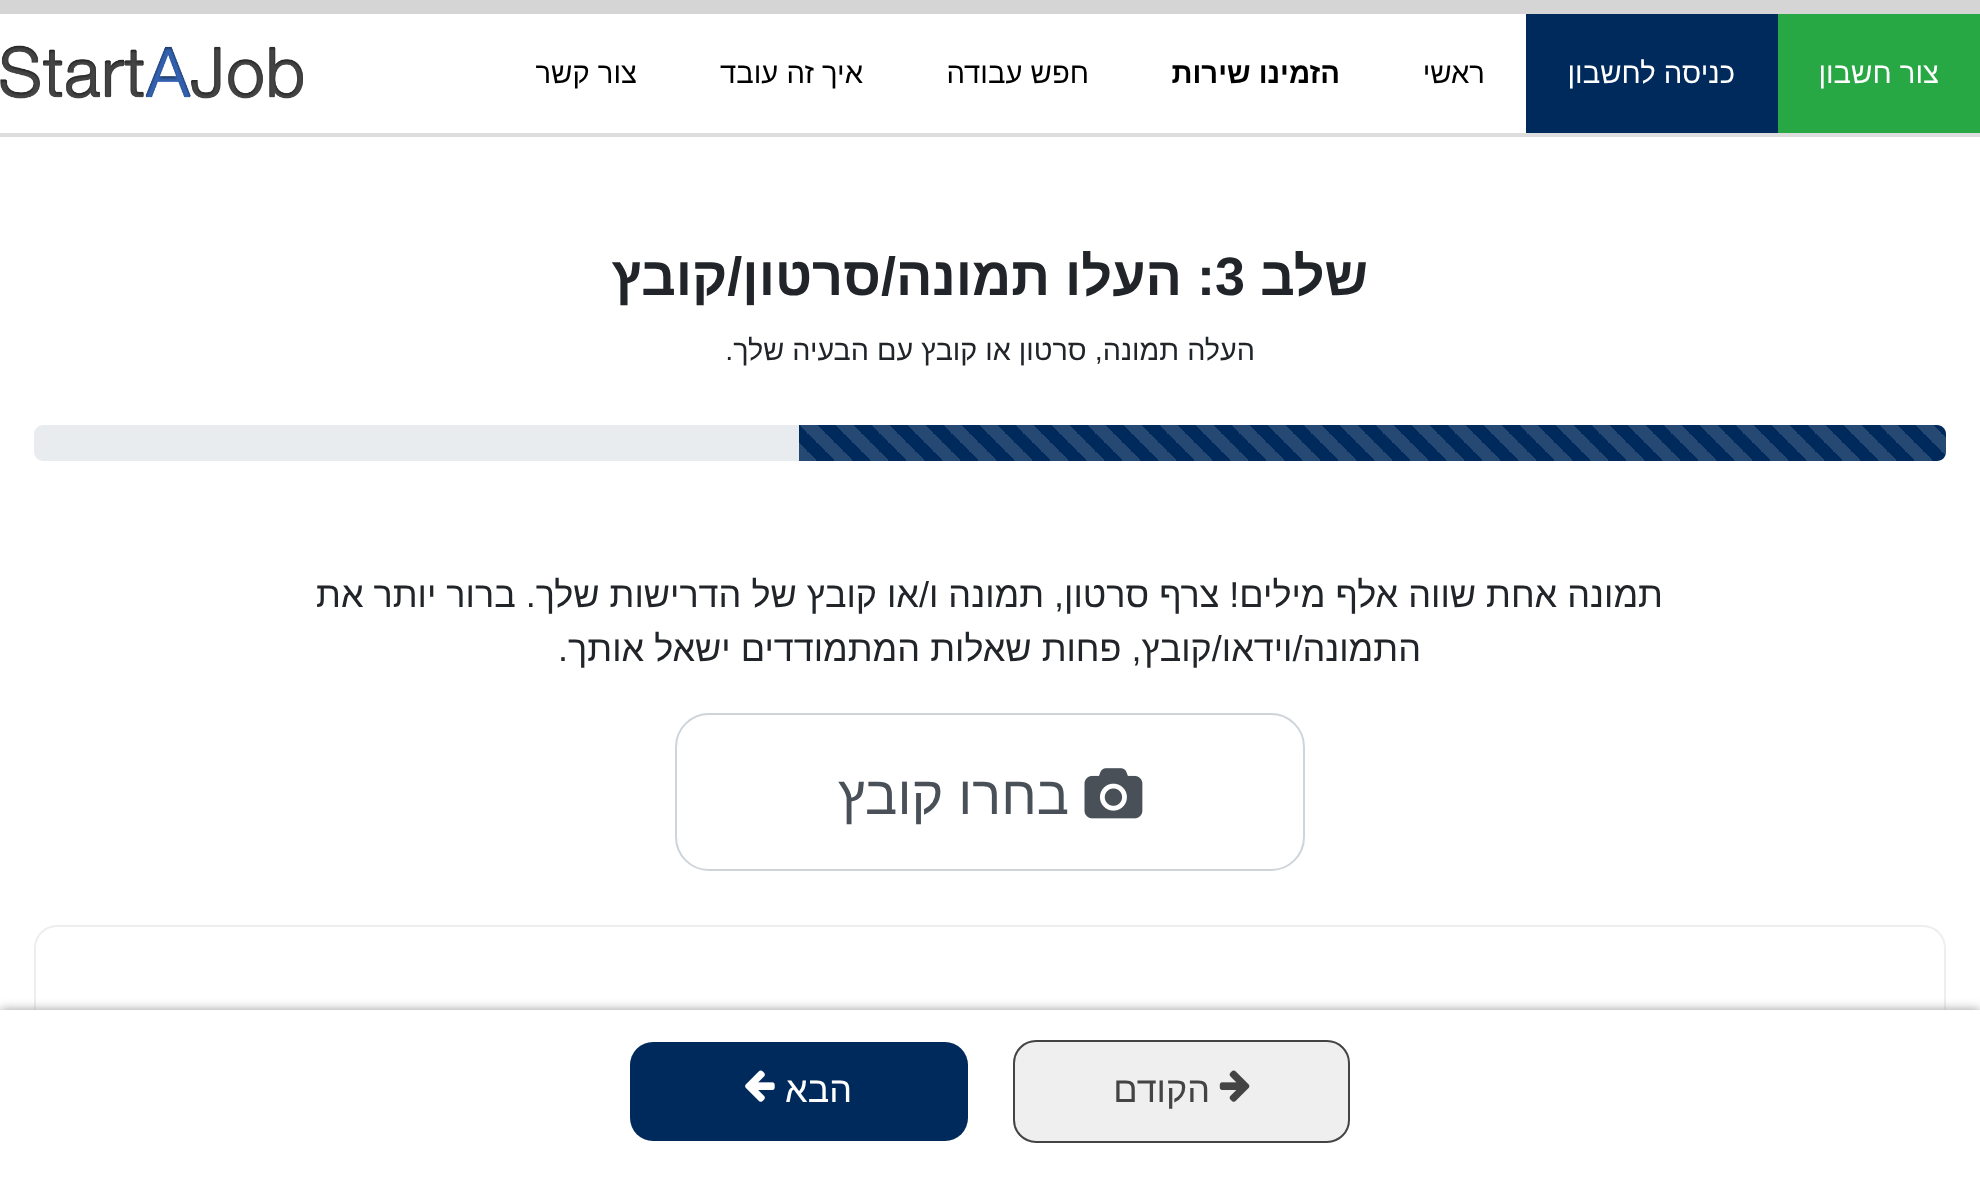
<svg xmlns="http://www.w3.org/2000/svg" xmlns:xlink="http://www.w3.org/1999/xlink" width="1980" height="1178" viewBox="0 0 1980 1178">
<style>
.cls-1{font:29.25px Liberation Sans;direction:rtl;fill:#ffffff}
.cls-2{font:29.25px Liberation Sans;direction:rtl;fill:#000000}
.cls-3{font:bold 29.25px Liberation Sans;direction:rtl;fill:#000000}
.cls-4{font:bold 54px Liberation Sans;direction:rtl;fill:#212529}
.cls-5{font:bold 54px Liberation Sans;fill:#212529}
.cls-6{font:28.75px Liberation Sans;direction:rtl;fill:#212529}
.cls-7{font:36px Liberation Sans;direction:rtl;fill:#212529}
.cls-8{font:54px Liberation Sans;direction:rtl;fill:#495057}
.cls-9{font:36px Liberation Sans;direction:rtl;fill:#444444}
.cls-10{font:36px Liberation Sans;direction:rtl;fill:#ffffff}
</style>
<rect width="100%" height="100%" fill="#ffffff"/>
<rect fill="#d5d5d5" x="0" y="0" width="1980" height="14"/>
<rect fill="#dddddd" x="0" y="133" width="1980" height="4"/>
<rect fill="#28a745" x="1778" y="14" width="202" height="119"/>
<rect fill="#002a5c" x="1526" y="14" width="252" height="119"/>
<image xlink:href="image0.png" x="0" y="45" width="303" height="54"/>
<rect fill="#e9ecef" x="34" y="425" width="1912" height="36" rx="9"/>
<path fill="#002a5c" d="M799 425H1937C1942 425 1946 429 1946 434V452C1946 457 1942 461 1937 461H799Z"/>
<image xlink:href="image1.png" x="799" y="425" width="1147" height="36"/>
<rect fill="none" stroke="#ced4da" stroke-width="2" x="676" y="714" width="628" height="156" rx="33"/>
<image xlink:href="image2.png" x="1084" y="768" width="59" height="51"/>
<rect fill="none" stroke="#eeeeee" stroke-width="2" x="35" y="926" width="1910" height="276" rx="22"/>
<rect fill="#999999" filter="blur(5.5px)" x="0" y="1010" width="1980" height="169"/>
<rect fill="#ffffff" x="0" y="1010" width="1980" height="168"/>
<rect fill="#efefef" stroke="#444444" stroke-width="2" x="1014" y="1041" width="335" height="101" rx="22"/>
<image xlink:href="image3.png" x="1219" y="1070" width="31" height="32"/>
<rect fill="#002a5c" x="630" y="1042" width="338" height="99" rx="23"/>
<image xlink:href="image4.png" x="745" y="1070" width="30" height="32"/>
<text class="cls-1" x="1939" y="83">צור חשבון</text>
<text class="cls-1" x="1735" y="83">כניסה לחשבון</text>
<text class="cls-2" x="1485" y="83">ראשי</text>
<text class="cls-3" x="1340" y="83">הזמינו שירות</text>
<text class="cls-2" x="1089" y="83">חפש עבודה</text>
<text class="cls-2" x="863" y="83">איך זה עובד</text>
<text class="cls-2" x="637" y="83">צור קשר</text>
<text class="cls-4" x="1368" y="295">שלב</text>
<text class="cls-5" x="1215" y="295">3</text>
<text class="cls-4" x="1215" y="295">: העלו תמונה/סרטון/קובץ</text>
<text class="cls-6" x="1255" y="360">העלה תמונה, סרטון או קובץ עם הבעיה שלך.</text>
<text class="cls-7" x="1663" y="607">תמונה אחת שווה אלף מילים! צרף סרטון, תמונה ו/או קובץ של הדרישות שלך. ברור יותר את</text>
<text class="cls-7" x="1421" y="661">התמונה/וידאו/קובץ, פחות שאלות המתמודדים ישאל אותך.</text>
<text class="cls-8" x="1069" y="814">בחרו קובץ</text>
<text class="cls-9" x="1210" y="1102">הקודם</text>
<text class="cls-10" x="852" y="1102">הבא</text>
</svg>
